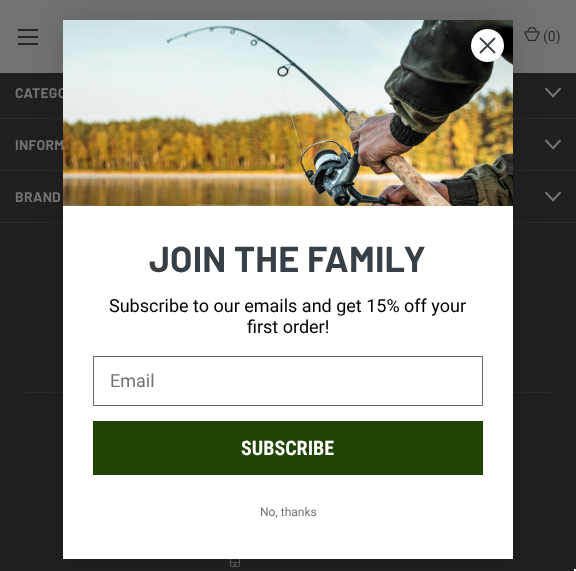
<svg xmlns="http://www.w3.org/2000/svg" xmlns:xlink="http://www.w3.org/1999/xlink" width="576" height="571" viewBox="0 0 576 571">
<style>
.cls-1{font:14px Roboto;fill:#2b2b2b}
.cls-2{font:bold 14px Barlow;letter-spacing:0.25px;fill:#727272}
.cls-3{font:bold 36px Barlow;letter-spacing:0.25px;fill:#373f47}
.cls-4{font:18px Roboto;fill:#000000}
.cls-5{font:18px Roboto;fill:#727272}
.cls-6{font:bold 20px Roboto Condensed;fill:#ffffff}
.cls-7{font:12px Roboto;fill:#727272}
</style>
<rect width="100%" height="100%" fill="#202020"/>
<rect fill="#727272" x="0" y="0" width="576" height="73"/>
<rect fill="#262626" x="18" y="36" width="20" height="2"/>
<rect fill="#262626" x="18" y="29" width="20" height="2"/>
<rect fill="#262626" x="18" y="43" width="20" height="2"/>
<image xlink:href="image0.png" x="524" y="27" width="16" height="15"/>
<rect fill="#2a2a2a" x="0" y="118" width="576" height="1"/>
<image xlink:href="image1.png" x="545" y="87" width="16" height="11"/>
<rect fill="#2a2a2a" x="0" y="170" width="576" height="1"/>
<image xlink:href="image1.png" x="545" y="139" width="16" height="11"/>
<rect fill="#2a2a2a" x="0" y="222" width="576" height="1"/>
<image xlink:href="image1.png" x="545" y="191" width="16" height="11"/>
<rect fill="#2a2a2a" x="25" y="392" width="526" height="1"/>
<image xlink:href="image2.png" x="230" y="559" width="10" height="8"/>
<rect fill="#000000" fill-opacity="0.15" filter="blur(15px)" x="63" y="20" width="450" height="539"/>
<rect fill="#ffffff" x="63" y="206" width="450" height="353"/>
<rect fill="none" stroke="#606a72" x="93.5" y="356.5" width="389" height="49"/>
<rect fill="#214405" x="93" y="421" width="390" height="54"/>
<rect fill="#f5f5f5" x="574" y="569" width="2" height="2"/>
<text class="cls-1" x="543" y="41">(0)</text>
<text class="cls-2" x="15" y="98">CATEGO</text>
<text class="cls-2" x="15" y="150">INFORM</text>
<text class="cls-2" x="15" y="202">BRAND</text>
<image xlink:href="image3.png" x="63" y="20" width="450" height="186"/>
<circle fill="#ffffff" cx="487.5" cy="45.5" r="16.5"/>
<path fill="none" stroke="#373f47" stroke-width="1.8" stroke-linecap="round" stroke-linejoin="round" d="M480.5 38.5L494.5 52.5M480.5 52.5L494.5 38.5Z"/>
<text class="cls-3" x="149" y="272">JOIN THE FAMILY</text>
<text class="cls-4" x="109" y="312">Subscribe to our emails and get 15% off your</text>
<text class="cls-4" x="247" y="333">first order!</text>
<text class="cls-5" x="110" y="387">Email</text>
<text class="cls-6" x="241" y="455">SUBSCRIBE</text>
<text class="cls-7" x="260" y="516">No, thanks</text>
</svg>
